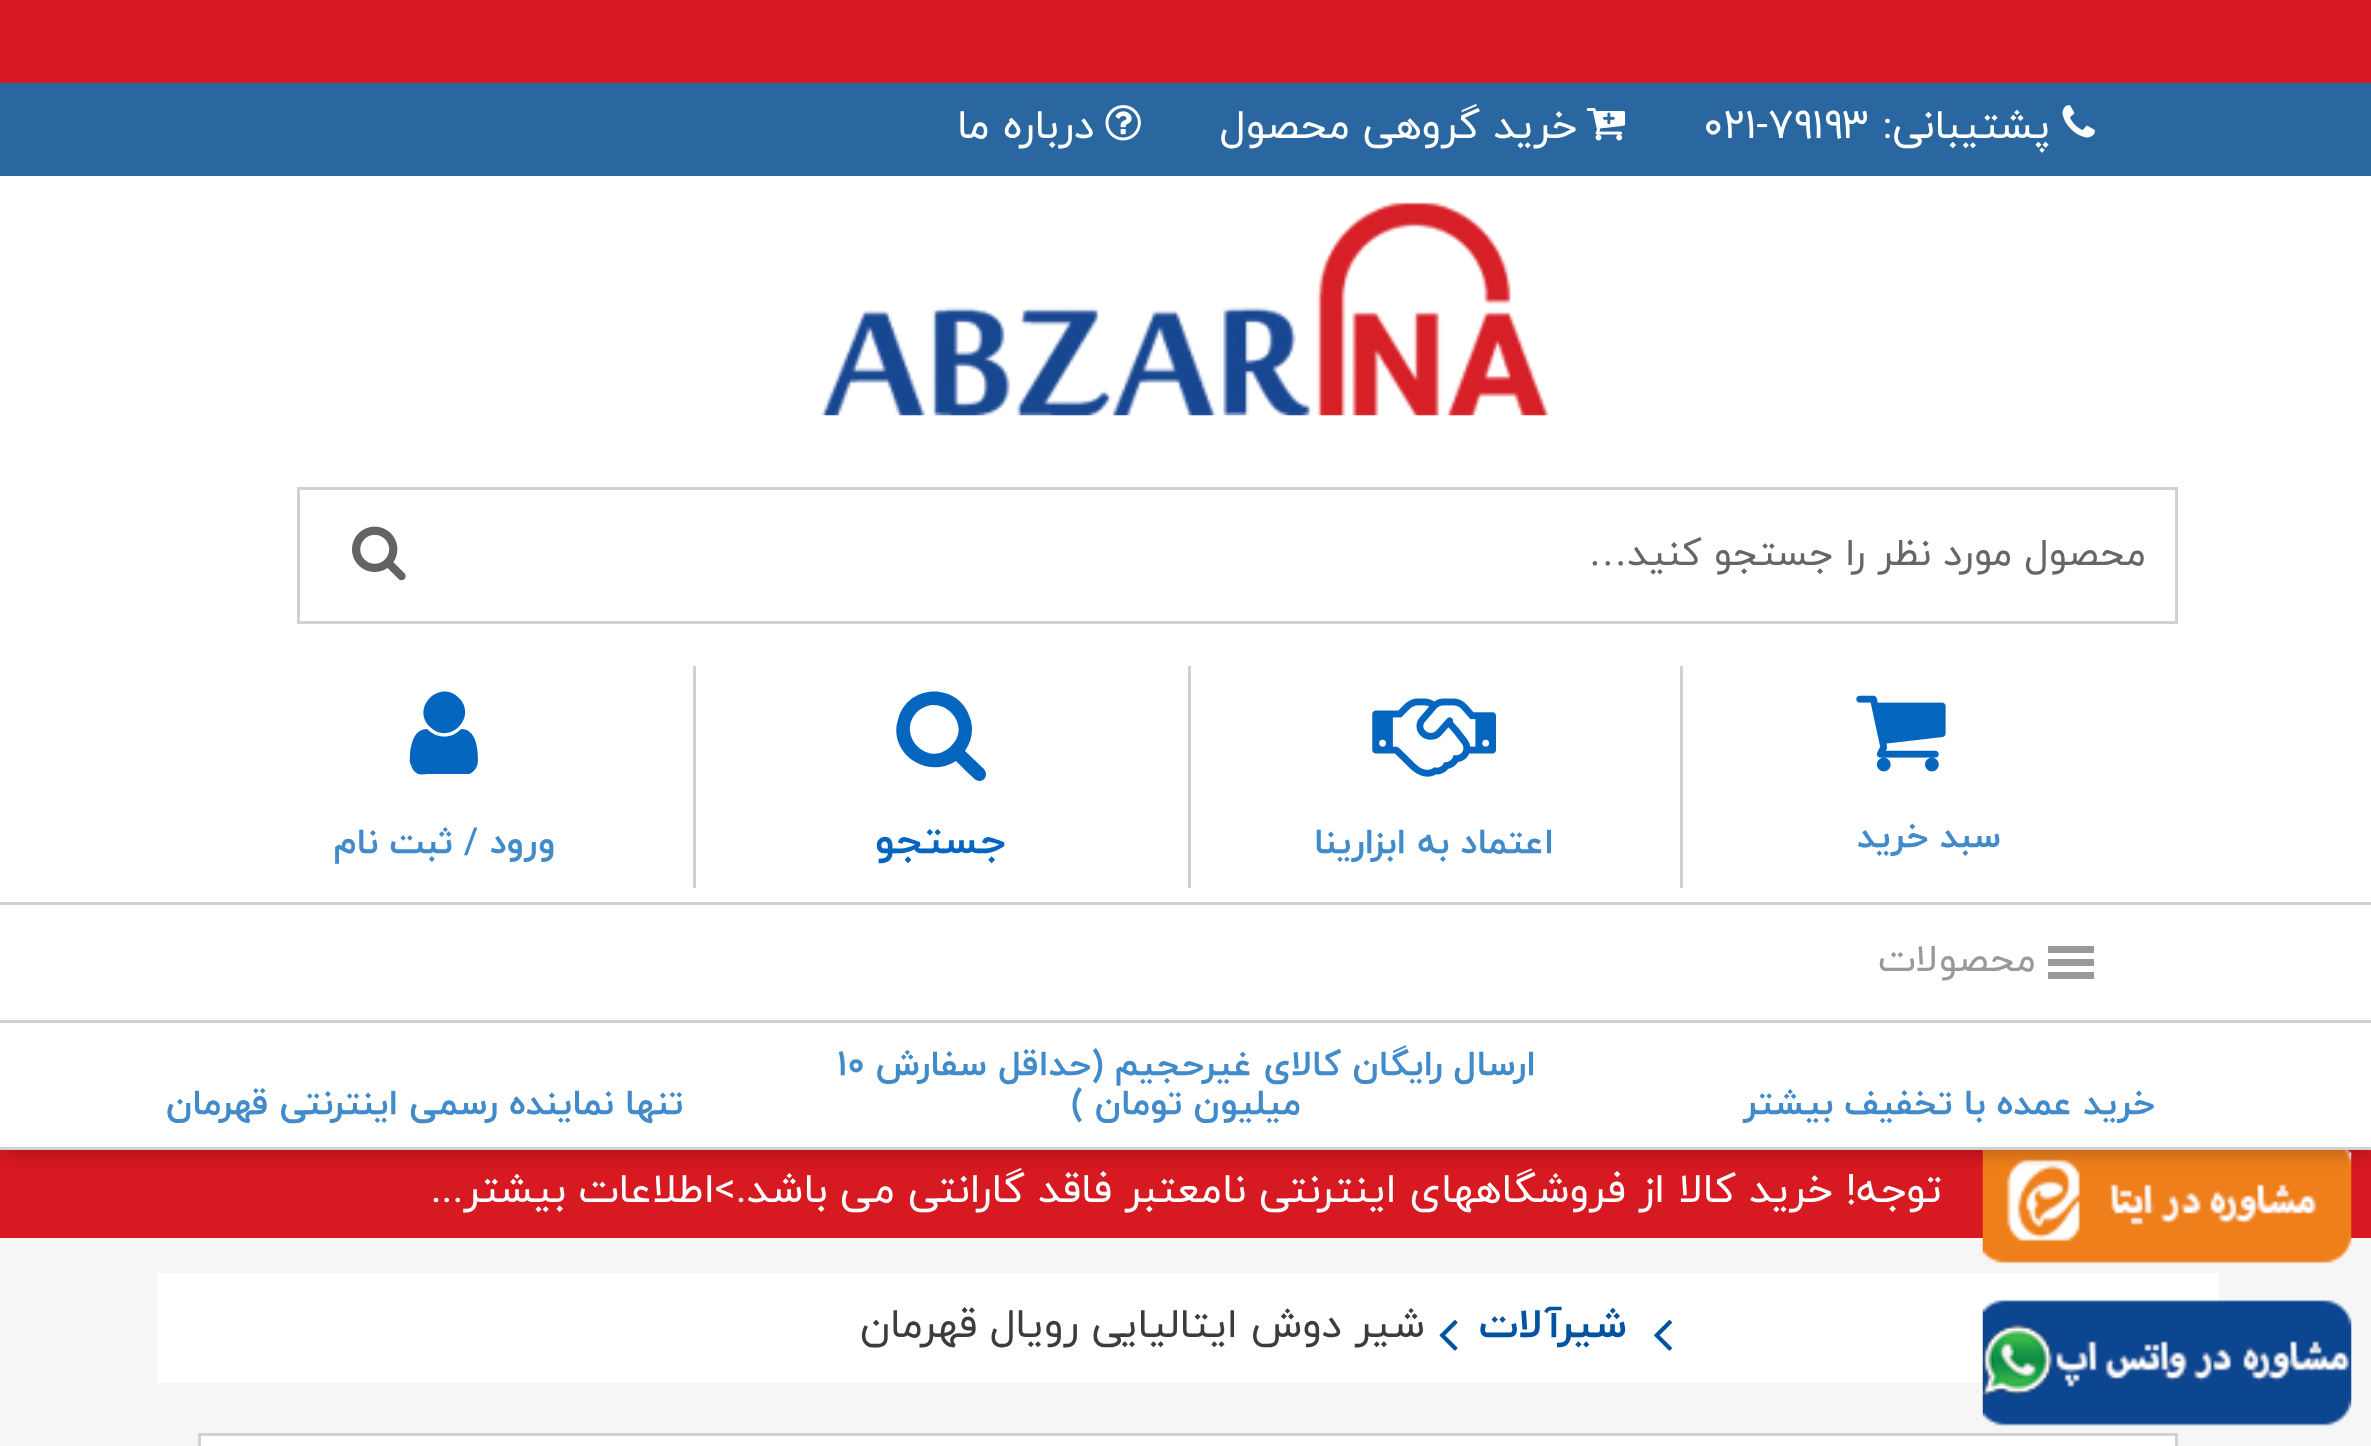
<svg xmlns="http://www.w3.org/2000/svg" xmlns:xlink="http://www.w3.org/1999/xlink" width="2371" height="1446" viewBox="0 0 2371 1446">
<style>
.cls-1{font:41.25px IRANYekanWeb;direction:rtl;fill:#ffffff}
.cls-2{font:41.25px IRANYekanWeb;fill:#ffffff}
.cls-3{font:38.5px IRANYekanWeb;direction:rtl;fill:#666666}
.cls-4{font:38.5px Liberation Serif;direction:rtl;fill:#666666}
.cls-5{font:bold 35.75px IRANYekanWeb;direction:rtl;fill:#428bca}
.cls-6{font:bold 41.25px IRANYekanWeb;direction:rtl;fill:#0566c0}
.cls-7{font:38.5px IRANYekanWeb;direction:rtl;fill:#999999}
.cls-8{font:bold 35.75px IRANYekanWeb;fill:#428bca}
.cls-9{font:bold 41.25px IRANYekanWeb;direction:rtl;fill:#0053a0}
.cls-10{font:41.25px IRANYekanWeb;direction:rtl;fill:#3c3c3c}
</style>
<rect width="100%" height="100%" fill="#f6f6f6"/>
<rect fill="#ffffff" x="0" y="176" width="2371" height="844"/>
<rect fill="#d71921" x="0" y="0" width="2371" height="83"/>
<rect fill="#2a67a1" x="0" y="83" width="2371" height="93"/>
<image xlink:href="image0.png" x="2062" y="105" width="33" height="33"/>
<image xlink:href="image1.png" x="1586" y="108" width="40" height="33"/>
<image xlink:href="image2.png" x="1105" y="105" width="36" height="36"/>
<rect fill="#d1d1d1" x="0" y="902" width="2371" height="3"/>
<image xlink:href="image3.png" x="821" y="202" width="728" height="214"/>
<rect fill="none" stroke="#d1d1d1" stroke-width="3" x="298.5" y="488.5" width="1878" height="134"/>
<image xlink:href="image4.png" x="352" y="526" width="54" height="55"/>
<image xlink:href="image5.png" x="1856" y="695" width="90" height="77"/>
<rect fill="#d1d1d1" x="1680" y="666" width="3" height="222"/>
<rect fill="#d1d1d1" x="1188" y="666" width="3" height="222"/>
<image xlink:href="image6.png" x="1372" y="698" width="124" height="79"/>
<rect fill="#d1d1d1" x="693" y="666" width="3" height="222"/>
<path fill="#0566c0" d="M951 746C974 724 940 690 917 712C895 735 929 769 951 746ZM986 774C986 776 985 779 983 780C977 784 972 776 968 773L956 761C937 774 910 766 900 746C896 738 895 729 898 720C907 683 959 682 970 718C974 729 972 741 965 751L984 769C985 771 986 772 986 774Z"/>
<path fill="#0566c0" d="M478 760C478 766 475 772 469 774H429C426 774 421 775 418 774C414 772 412 769 411 765C409 762 410 758 410 754C411 744 414 729 427 729C437 739 452 739 461 729C476 729 478 748 478 760ZM459 698C478 717 449 746 430 727C410 708 440 678 459 698Z"/>
<path fill="#999999" d="M2048 979H2094V972H2048ZM2048 946V953H2094V946ZM2048 966H2094V959H2048Z"/>
<rect fill="#d71921" x="0" y="1150" width="2371" height="88"/>
<image xlink:href="image7.png" x="1982" y="1150" width="370" height="114"/>
<rect fill="#000000" fill-opacity="0.2" filter="blur(8px)" x="6" y="1037" width="2362" height="118"/>
<rect fill="#ffffff" x="0" y="1023" width="2371" height="124"/>
<rect fill="#d1d1d1" x="0" y="1020" width="2371" height="3"/>
<rect fill="#d1d1d1" x="0" y="1147" width="2371" height="3"/>
<rect fill="#ffffff" x="157" y="1273" width="2062" height="110"/>
<image xlink:href="image8.png" x="1982" y="1300" width="370" height="126"/>
<image xlink:href="image9.png" x="1654" y="1320" width="18" height="31"/>
<image xlink:href="image10.png" x="1439" y="1320" width="19" height="31"/>
<rect fill="#ffffff" stroke="#d1d1d1" stroke-width="3" x="199.5" y="1434.5" width="1977" height="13"/>
<text class="cls-1" x="2050" y="138">پشتیبانی:</text>
<text class="cls-2" x="1703" y="138">۰۲۱-۷۹۱۹۳</text>
<text class="cls-1" x="1577" y="138">خرید گروهی محصول</text>
<text class="cls-1" x="1094" y="138">درباره ما</text>
<text class="cls-3" x="2146" y="565">محصول مورد نظر را جستجو کنید</text>
<text class="cls-4" x="1627" y="565">…</text>
<text class="cls-5" x="2001" y="847">سبد خرید</text>
<text class="cls-5" x="1554" y="853">اعتماد به ابزارینا</text>
<text class="cls-6" x="1006" y="853">جستجو</text>
<text class="cls-5" x="555" y="853">ورود / ثبت نام</text>
<text class="cls-7" x="2036" y="971">محصولات</text>
<text class="cls-5" x="2155" y="1114">خرید عمده با تخفیف بیشتر</text>
<text class="cls-5" x="1536" y="1075">ارسال رایگان کالای غیرحجیم (حداقل سفارش</text>
<text class="cls-8" x="837" y="1075">۱۰</text>
<text class="cls-5" x="1301" y="1114">میلیون تومان )</text>
<text class="cls-5" x="683" y="1114">تنها نماینده رسمی اینترنتی قهرمان</text>
<text class="cls-1" x="1942" y="1202">توجه! خرید کالا از فروشگاههای اینترنتی نامعتبر فاقد گارانتی می باشد.&gt;اطلاعات بیشتر...</text>
<text class="cls-9" x="1627" y="1337">شیرآلات</text>
<text class="cls-10" x="1425" y="1337">شیر دوش ایتالیایی رویال قهرمان</text>
</svg>
